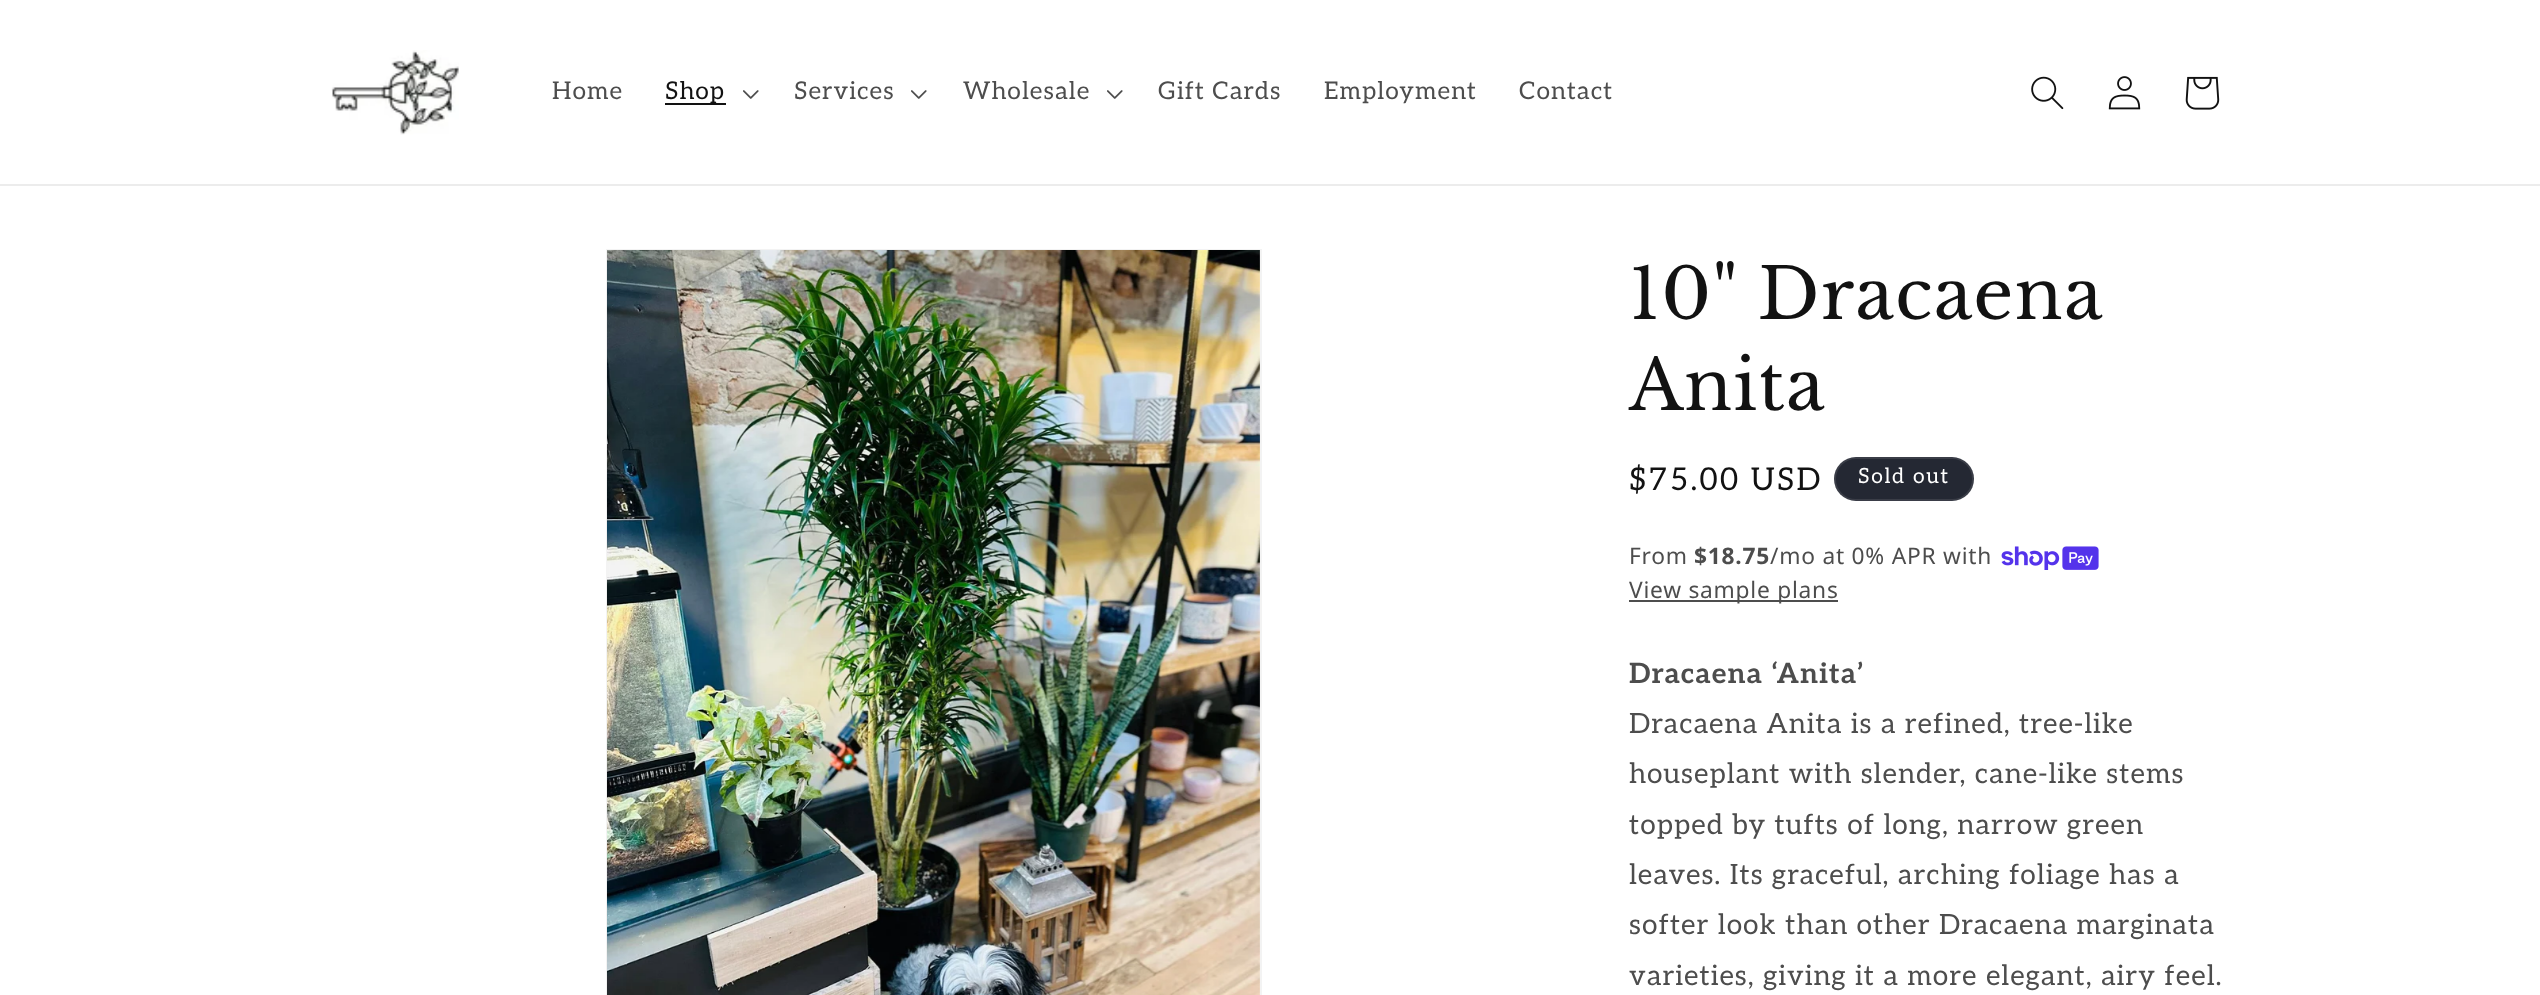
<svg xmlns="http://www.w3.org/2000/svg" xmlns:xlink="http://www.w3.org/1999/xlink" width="2540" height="995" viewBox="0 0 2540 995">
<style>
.cls-1{font:24.5px Aleo;letter-spacing:1.05px;fill:#4d4d4d}
.cls-2{font:24.5px Aleo;letter-spacing:1.05px;fill:#121212}
.cls-3{font:70px Libre Baskerville;letter-spacing:1.05px;fill:#121212}
.cls-4{font:31.5px Aleo;letter-spacing:2.25px;fill:#121212}
.cls-5{font:21px Aleo;letter-spacing:1.75px;fill:#ffffff}
.cls-6{font:22.75px Noto Sans;letter-spacing:0.75px;fill:#4d4d4d}
.cls-7{font:bold 22.75px Noto Sans;letter-spacing:0.75px;fill:#4d4d4d}
.cls-8{font:bold 28px Aleo;letter-spacing:1.05px;fill:#4d4d4d}
.cls-9{font:28px Aleo;letter-spacing:1.05px;fill:#4d4d4d}
</style>
<rect width="100%" height="100%" fill="#ffffff"/>
<rect fill="#ececec" x="0" y="184" width="2540" height="2"/>
<image xlink:href="image0.png" x="331" y="50" width="128" height="85"/>
<rect fill="#121212" x="665" y="103" width="61" height="2"/>
<image xlink:href="image1.png" x="743" y="90" width="16" height="9"/>
<image xlink:href="image1.png" x="911" y="90" width="16" height="9"/>
<image xlink:href="image1.png" x="1107" y="90" width="16" height="9"/>
<image xlink:href="image2.png" x="2031" y="76" width="33" height="34"/>
<image xlink:href="image3.png" x="2108" y="76" width="33" height="34"/>
<image xlink:href="image4.png" x="2185" y="76" width="35" height="34"/>
<rect fill="none" stroke="#f3f3f3" stroke-width="2" x="607" y="250" width="654" height="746"/>
<image xlink:href="image5.png" x="607" y="250" width="653" height="745"/>
<rect fill="#242833" x="1834" y="457" width="140" height="44" rx="22"/>
<rect fill="none" stroke="#ffffff" stroke-opacity="0.1" stroke-width="2" x="1835" y="458" width="138" height="42" rx="21"/>
<image xlink:href="image6.png" x="2001" y="546" width="98" height="24"/>
<rect fill="#4d4d4d" x="1629" y="600" width="209" height="2"/>
<text class="cls-1" x="552" y="99">Home</text>
<text class="cls-2" x="665" y="99">Shop</text>
<text class="cls-1" x="794" y="99">Services</text>
<text class="cls-1" x="963" y="99">Wholesale</text>
<text class="cls-1" x="1158" y="99">Gift Cards</text>
<text class="cls-1" x="1324" y="99">Employment</text>
<text class="cls-1" x="1519" y="99">Contact</text>
<text class="cls-3"><tspan x="1629" y="319" word-spacing="-1">10" Dracaena</tspan><tspan x="1629" y="410">Anita</tspan></text>
<text class="cls-4" x="1629" y="490">$75.00 USD</text>
<text class="cls-5" x="1858" y="483">Sold out</text>
<text class="cls-6" x="1629" y="564">From</text>
<text class="cls-7" x="1694" y="564">$18.75</text>
<text class="cls-6" x="1770" y="564">/mo at 0% APR with</text>
<text class="cls-6" x="1629" y="598">View sample plans</text>
<text class="cls-8" x="1629" y="683">Dracaena ‘Anita’</text>
<text class="cls-9"><tspan x="1629" y="733">Dracaena Anita is a refined, tree-like</tspan><tspan x="1629" y="783">houseplant with slender, cane-like stems</tspan><tspan x="1629" y="834">topped by tufts of long, narrow green</tspan><tspan x="1629" y="884">leaves. Its graceful, arching foliage has a</tspan><tspan x="1629" y="934">softer look than other Dracaena marginata</tspan><tspan x="1629" y="985">varieties, giving it a more elegant, airy feel.</tspan></text>
</svg>
